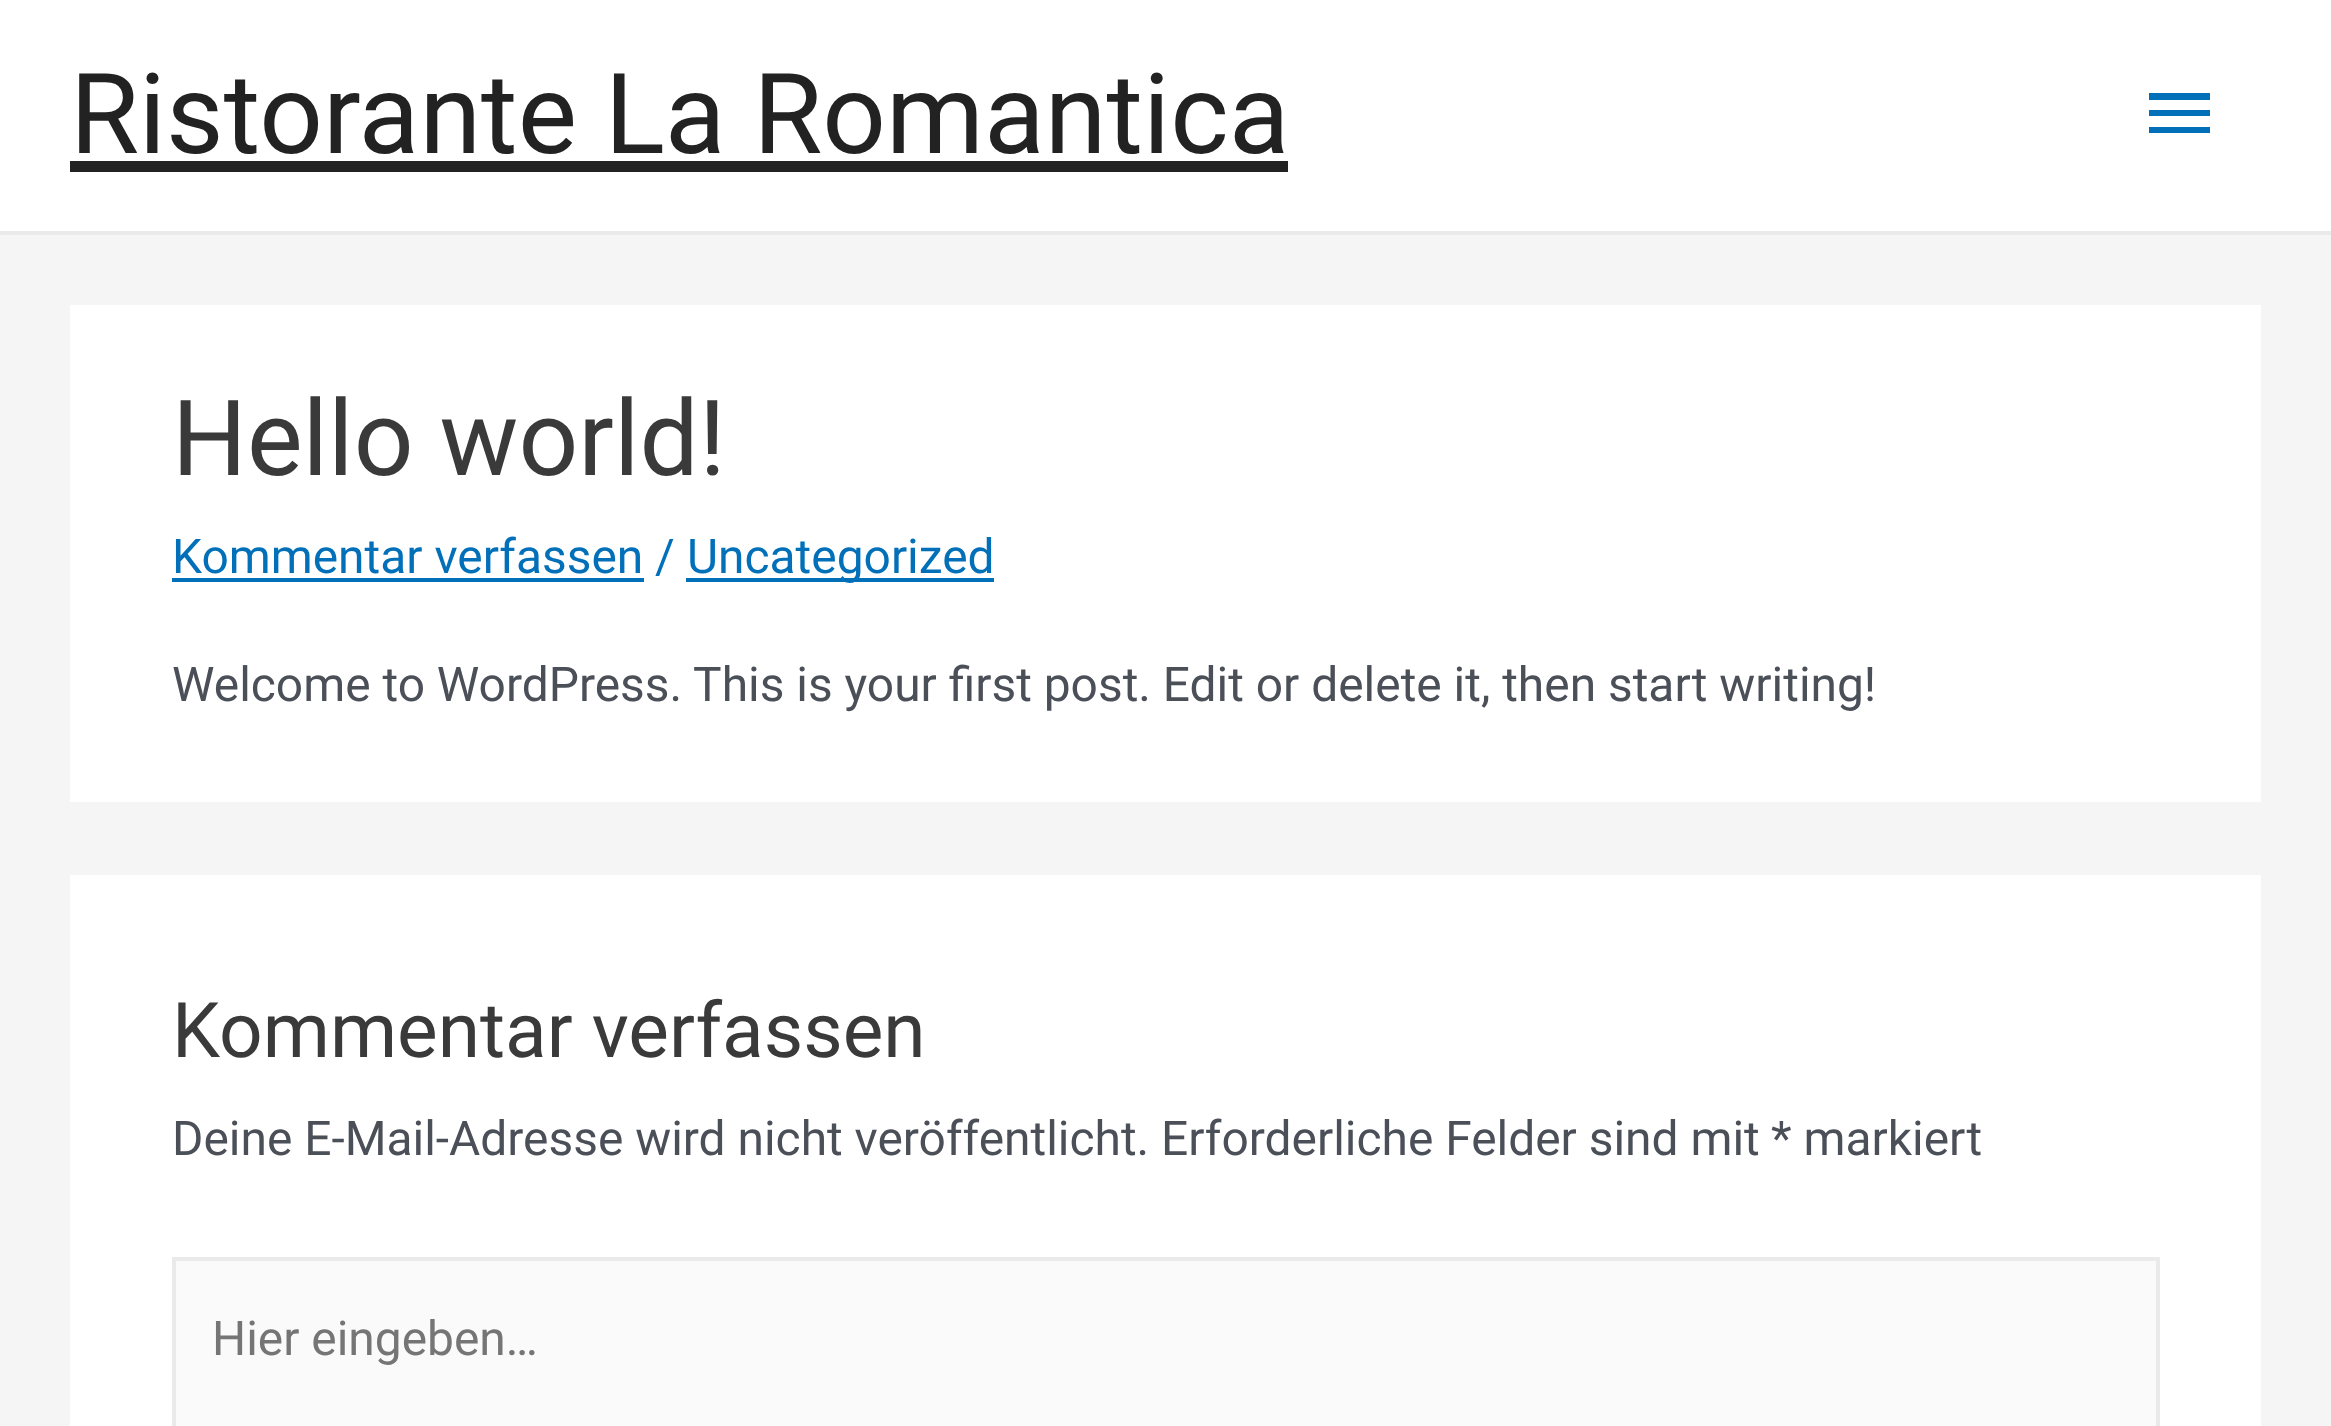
<svg xmlns="http://www.w3.org/2000/svg" xmlns:xlink="http://www.w3.org/1999/xlink" width="2331" height="1426" viewBox="0 0 2331 1426">
<style>
.cls-1{font:111.75px Roboto;fill:#222222}
.cls-2{font:105px Roboto;fill:#3a3a3a}
.cls-3{font:47.9px Roboto;fill:#0170b9}
.cls-4{font:47.9px Roboto;fill:#4b4f58}
.cls-5{font:76.6px Roboto;fill:#3a3a3a}
.cls-6{font:47.9px Roboto;fill:#757575}
</style>
<rect width="100%" height="100%" fill="#f5f5f5"/>
<rect fill="#ffffff" x="0" y="0" width="2331" height="231"/>
<rect fill="#eaeaea" x="0" y="231" width="2331" height="4"/>
<rect fill="#222222" x="70" y="161" width="1218" height="11"/>
<path fill="#0170b9" d="M2149 93H2210V100H2149ZM2149 116V110H2210V116ZM2149 133V127H2210V133Z"/>
<rect fill="#ffffff" x="70" y="305" width="2191" height="497"/>
<rect fill="#0170b9" x="172" y="578" width="472" height="4"/>
<rect fill="#0170b9" x="686" y="578" width="308" height="4"/>
<rect fill="#ffffff" x="70" y="875" width="2191" height="551"/>
<rect fill="#fafafa" stroke="#eaeaea" stroke-width="4" x="174" y="1259" width="1984" height="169"/>
<text class="cls-1" x="70" y="153">Ristorante La Romantica</text>
<text class="cls-2" x="172" y="475">Hello world!</text>
<text class="cls-3" x="172" y="573">Kommentar verfassen /</text>
<text class="cls-3" x="687" y="573">Uncategorized</text>
<text class="cls-4" x="172" y="701">Welcome to WordPress. This is your first post. Edit or delete it, then start writing!</text>
<text class="cls-5" x="172" y="1057">Kommentar verfassen</text>
<text class="cls-4" x="172" y="1155">Deine E-Mail-Adresse wird nicht veröffentlicht.</text>
<text class="cls-4" x="1161" y="1155">Erforderliche Felder sind mit</text>
<text class="cls-4" x="1771" y="1155">* markiert</text>
<text class="cls-6" x="212" y="1355">Hier eingeben…</text>
</svg>
